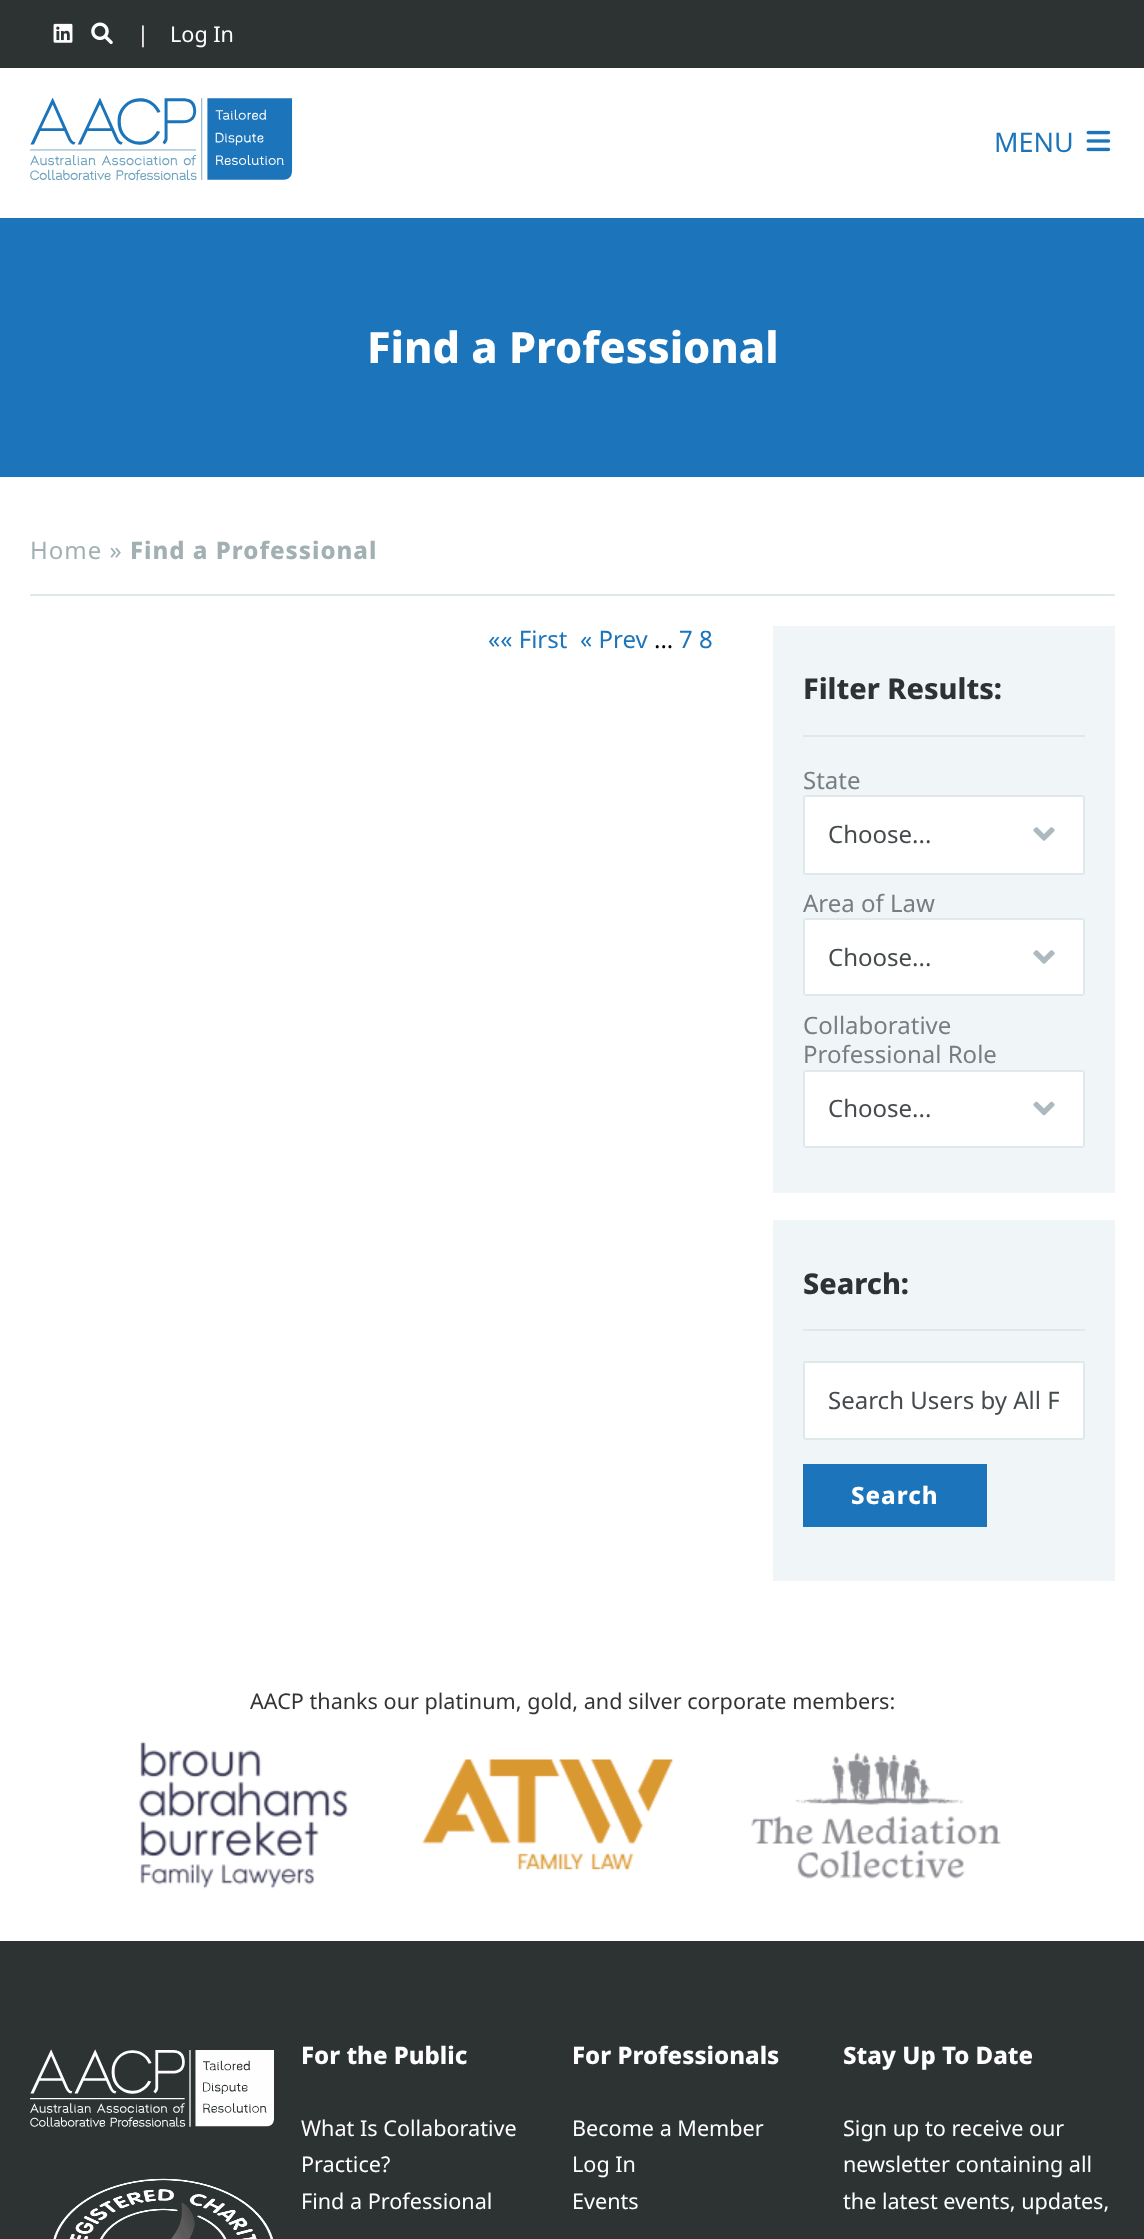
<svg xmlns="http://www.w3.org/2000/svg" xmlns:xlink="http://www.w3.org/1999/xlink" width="1144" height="2239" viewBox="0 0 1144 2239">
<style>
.cls-1{font:21.6px Noto Sans;fill:#ffffff}
.cls-2{font:27px Noto Sans;fill:#1c75bb}
.cls-3{font:800 43.25px Noto Sans;fill:#ffffff}
.cls-4{font:24px Noto Sans;letter-spacing:1px;fill:#a2b0b3}
.cls-5{font:800 24px Noto Sans;letter-spacing:1px;fill:#a2b0b3}
.cls-6{font:24px Noto Sans;fill:#1c75bb}
.cls-7{font:24px Noto Sans;fill:#000000}
.cls-8{font:800 28.75px Noto Sans;fill:#2d3233}
.cls-9{font:24px Noto Sans;fill:#757e80}
.cls-10{font:24px Noto Sans;fill:#454b4d}
.cls-11{font:800 24px Noto Sans;letter-spacing:1px;fill:#ffffff}
.cls-12{font:21.6px Noto Sans;fill:#333333}
.cls-13{font:800 24px Noto Sans;fill:#ffffff}
</style>
<defs>
<clipPath id="clip1"><rect x="828" y="1386" width="231" height="29"/></clipPath>
</defs>
<rect width="100%" height="100%" fill="#ffffff"/>
<rect fill="#2d3233" x="0" y="0" width="1144" height="68"/>
<image xlink:href="image0.png" x="53" y="23" width="20" height="20"/>
<image xlink:href="image1.png" x="91" y="22" width="22" height="23"/>
<image xlink:href="image2.png" x="30" y="98" width="263" height="83"/>
<image xlink:href="image3.png" x="1086" y="130" width="25" height="22"/>
<rect fill="#1c75bb" x="0" y="218" width="1144" height="259"/>
<rect fill="#dfe9eb" x="30" y="594" width="1085" height="2"/>
<rect fill="#f0f5f7" x="773" y="626" width="342" height="567"/>
<rect fill="#dfe9eb" x="803" y="735" width="282" height="2"/>
<rect fill="#ffffff" x="803" y="795" width="282" height="80" rx="3"/>
<image xlink:href="image4.png" x="1033" y="827" width="22" height="14"/>
<rect fill="none" stroke="#dfe9eb" stroke-width="2" x="804" y="796" width="280" height="78" rx="2"/>
<rect fill="#ffffff" x="803" y="918" width="282" height="78" rx="3"/>
<image xlink:href="image4.png" x="1033" y="950" width="22" height="14"/>
<rect fill="none" stroke="#dfe9eb" stroke-width="2" x="804" y="919" width="280" height="76" rx="2"/>
<rect fill="#ffffff" x="803" y="1070" width="282" height="78" rx="3"/>
<image xlink:href="image5.png" x="1033" y="1101" width="22" height="15"/>
<rect fill="none" stroke="#dfe9eb" stroke-width="2" x="804" y="1071" width="280" height="76" rx="2"/>
<rect fill="#f0f5f7" x="773" y="1220" width="342" height="361"/>
<rect fill="#dfe9eb" x="803" y="1329" width="282" height="2"/>
<rect fill="#ffffff" stroke="#dfe9eb" stroke-width="2" x="804" y="1362" width="280" height="77" rx="2"/>
<rect fill="#1c75bb" x="803" y="1464" width="184" height="63"/>
<image xlink:href="image6.png" x="139" y="1741" width="862" height="148"/>
<rect fill="#2d3233" x="0" y="1941" width="1144" height="298"/>
<image xlink:href="image7.png" x="30" y="2049" width="244" height="78"/>
<image xlink:href="image8.png" x="53" y="2178" width="221" height="61"/>
<text class="cls-1" x="137" y="42">|</text>
<text class="cls-1" x="170" y="42">Log In</text>
<text class="cls-2" x="994" y="152">MENU</text>
<text class="cls-3" x="367" y="363">Find a Professional</text>
<text class="cls-4" x="30" y="559">Home »</text>
<text class="cls-5" x="130" y="559">Find a Professional</text>
<text class="cls-6" x="488" y="648">«« First</text>
<text class="cls-6" x="580" y="648">« Prev</text>
<text class="cls-7" x="654" y="648">...</text>
<text class="cls-6" x="679" y="648">7 8</text>
<text class="cls-8" x="803" y="699">Filter Results:</text>
<text class="cls-9" x="803" y="789">State</text>
<text class="cls-10" x="828" y="843">Choose...</text>
<text class="cls-9" x="803" y="912">Area of Law</text>
<text class="cls-10" x="828" y="966">Choose...</text>
<text class="cls-9"><tspan x="803" y="1034">Collaborative</tspan><tspan x="803" y="1063">Professional Role</tspan></text>
<text class="cls-10" x="828" y="1117">Choose...</text>
<text class="cls-8" x="803" y="1294">Search:</text>
<g clip-path="url(#clip1)">
<text class="cls-10" x="828" y="1409">Search Users by All F</text>
</g>
<text class="cls-11" x="851" y="1504">Search</text>
<text class="cls-12" x="250" y="1709">AACP thanks our platinum, gold, and silver corporate members:</text>
<text class="cls-13" x="301" y="2064">For the Public</text>
<text class="cls-1"><tspan x="301" y="2136">What Is Collaborative</tspan><tspan x="301" y="2172">Practice?</tspan><tspan x="301" y="2209">Find a Professional</tspan></text>
<text class="cls-13" x="572" y="2064">For Professionals</text>
<text class="cls-1"><tspan x="572" y="2136">Become a Member</tspan><tspan x="572" y="2172">Log In</tspan><tspan x="572" y="2209">Events</tspan></text>
<text class="cls-13" x="843" y="2064">Stay Up To Date</text>
<text class="cls-1"><tspan x="843" y="2136">Sign up to receive our</tspan><tspan x="843" y="2172">newsletter containing all</tspan><tspan x="843" y="2209">the latest events, updates,</tspan></text>
</svg>
